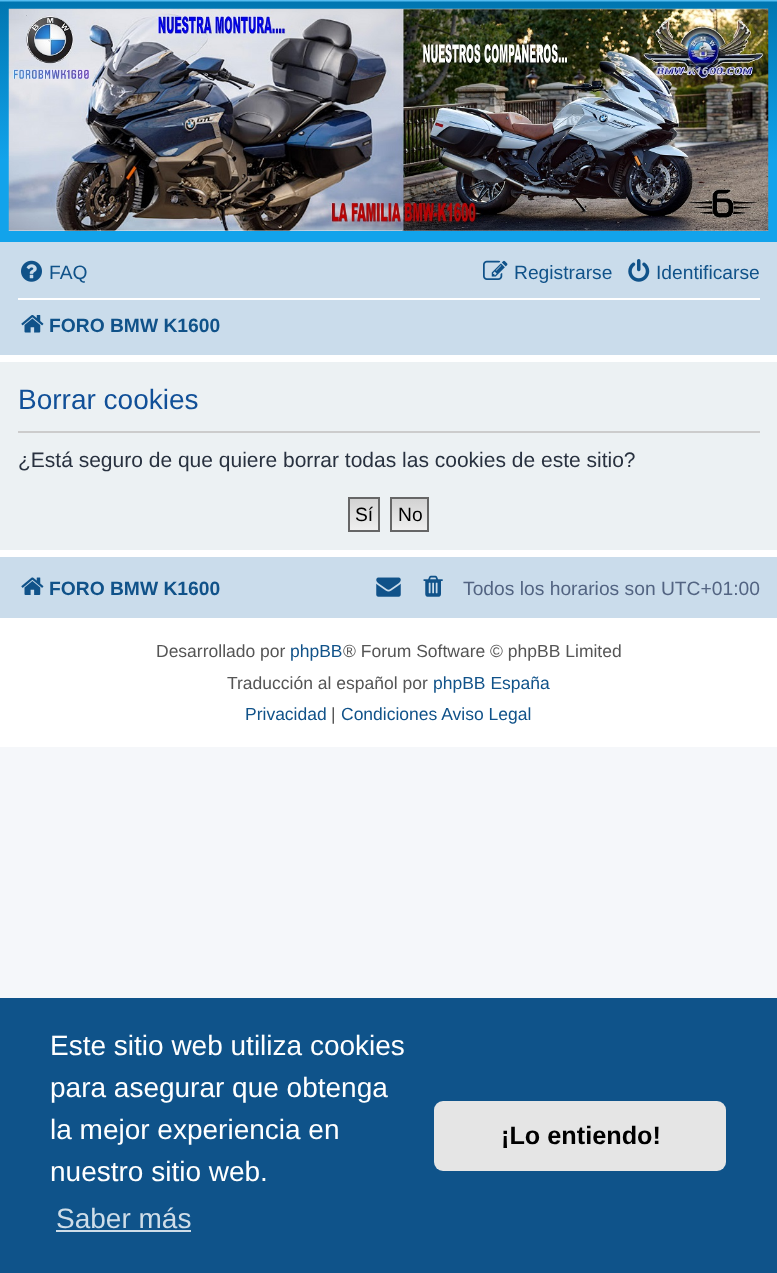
<svg xmlns="http://www.w3.org/2000/svg" xmlns:xlink="http://www.w3.org/1999/xlink" width="777" height="1273" viewBox="0 0 777 1273">
<style>
.cls-1{font:19.25px Liberation Sans;fill:#105289}
.cls-2{font:bold 19.25px Liberation Sans;fill:#105289}
.cls-3{font:28px Liberation Sans;fill:#115098}
.cls-4{font:21px Liberation Sans;fill:#28313f}
.cls-5{font:19.25px Liberation Sans;fill:#000000}
.cls-6{font:19.25px Liberation Sans;fill:#536482}
.cls-7{font:17.5px Liberation Sans;fill:#555555}
.cls-8{font:17.5px Liberation Sans;fill:#105289}
.cls-9{font:28px Liberation Sans;fill:#ffffff}
.cls-10{font:28px Liberation Sans;fill:#cfdde8}
.cls-11{font:bold 25.25px Liberation Sans;fill:#000000}
</style>
<defs>
<linearGradient id="g1" gradientUnits="userSpaceOnUse" x1="389" y1="0" x2="389" y2="243"><stop offset="0" stop-color="#6aceff"/><stop offset="0.01" stop-color="#0076b1"/><stop offset="0.66" stop-color="#12a3eb"/><stop offset="1" stop-color="#12a3eb"/></linearGradient>
<linearGradient id="g2" gradientUnits="userSpaceOnUse" x1="364" y1="499" x2="364" y2="530"><stop offset="0" stop-color="#d2d2d2"/><stop offset="1" stop-color="#efefef"/></linearGradient>
<linearGradient id="g3" gradientUnits="userSpaceOnUse" x1="410" y1="499" x2="410" y2="530"><stop offset="0" stop-color="#d2d2d2"/><stop offset="1" stop-color="#efefef"/></linearGradient>
</defs>
<rect width="100%" height="100%" fill="#f5f7fa"/>
<rect fill="#ffffff" x="0" y="355" width="777" height="392"/>
<rect fill="url(#g1)" x="0" y="0" width="777" height="242"/>
<image xlink:href="image0.png" x="8" y="8" width="761" height="223"/>
<rect fill="#cadceb" x="0" y="242" width="777" height="113"/>
<image xlink:href="image1.png" x="21" y="260" width="21" height="22"/>
<image xlink:href="image2.png" x="483" y="260" width="25" height="20"/>
<image xlink:href="image3.png" x="628" y="259" width="22" height="23"/>
<rect fill="#ffffff" x="18" y="298" width="742" height="2"/>
<image xlink:href="image4.png" x="21" y="315" width="23" height="18"/>
<rect fill="#ecf1f3" x="0" y="362" width="777" height="188"/>
<rect fill="#cccccc" x="18" y="431" width="742" height="2"/>
<rect fill="url(#g2)" x="350" y="499" width="28" height="31"/>
<rect fill="none" stroke="#666666" stroke-width="2" x="349" y="498" width="30" height="33"/>
<rect fill="url(#g3)" x="392" y="499" width="35" height="31"/>
<rect fill="none" stroke="#666666" stroke-width="2" x="391" y="498" width="37" height="33"/>
<rect fill="#cadceb" x="0" y="557" width="777" height="61"/>
<image xlink:href="image5.png" x="21" y="577" width="23" height="18"/>
<image xlink:href="image6.png" x="376" y="577" width="25" height="20"/>
<image xlink:href="image7.png" x="423" y="575" width="20" height="22"/>
<rect fill="#0f538a" x="0" y="998" width="777" height="275"/>
<rect fill="#cfdde8" x="56" y="1230" width="135" height="2"/>
<rect fill="#e5e5e5" x="434" y="1101" width="292" height="70" rx="9"/>
<text class="cls-1" x="49" y="279">FAQ</text>
<text class="cls-1" x="514" y="279">Registrarse</text>
<text class="cls-1" x="656" y="279">Identificarse</text>
<text class="cls-2" x="49" y="332">FORO BMW K1600</text>
<text class="cls-3" x="18" y="409">Borrar cookies</text>
<text class="cls-4" x="18" y="467">¿Está seguro de que quiere borrar todas las cookies de este sitio?</text>
<text class="cls-5" x="355" y="521">Sí</text>
<text class="cls-5" x="398" y="521">No</text>
<text class="cls-2" x="49" y="595">FORO BMW K1600</text>
<text class="cls-6" x="463" y="595">Todos los horarios son UTC+01:00</text>
<text class="cls-7" x="156" y="657">Desarrollado por</text>
<text class="cls-8" x="290" y="657">phpBB</text>
<text class="cls-7" x="343" y="657">® Forum Software © phpBB Limited</text>
<text class="cls-7" x="227" y="689">Traducción al español por</text>
<text class="cls-8" x="433" y="689">phpBB España</text>
<text class="cls-8" x="245" y="720">Privacidad</text>
<text class="cls-7" x="331" y="720">|</text>
<text class="cls-8" x="341" y="720">Condiciones Aviso Legal</text>
<text class="cls-9"><tspan x="50" y="1055">Este sitio web utiliza cookies</tspan><tspan x="50" y="1097">para asegurar que obtenga</tspan><tspan x="50" y="1139">la mejor experiencia en</tspan><tspan x="50" y="1181">nuestro sitio web.</tspan></text>
<text class="cls-10" x="56" y="1228">Saber más</text>
<text class="cls-11" x="501" y="1144">¡Lo entiendo!</text>
</svg>
